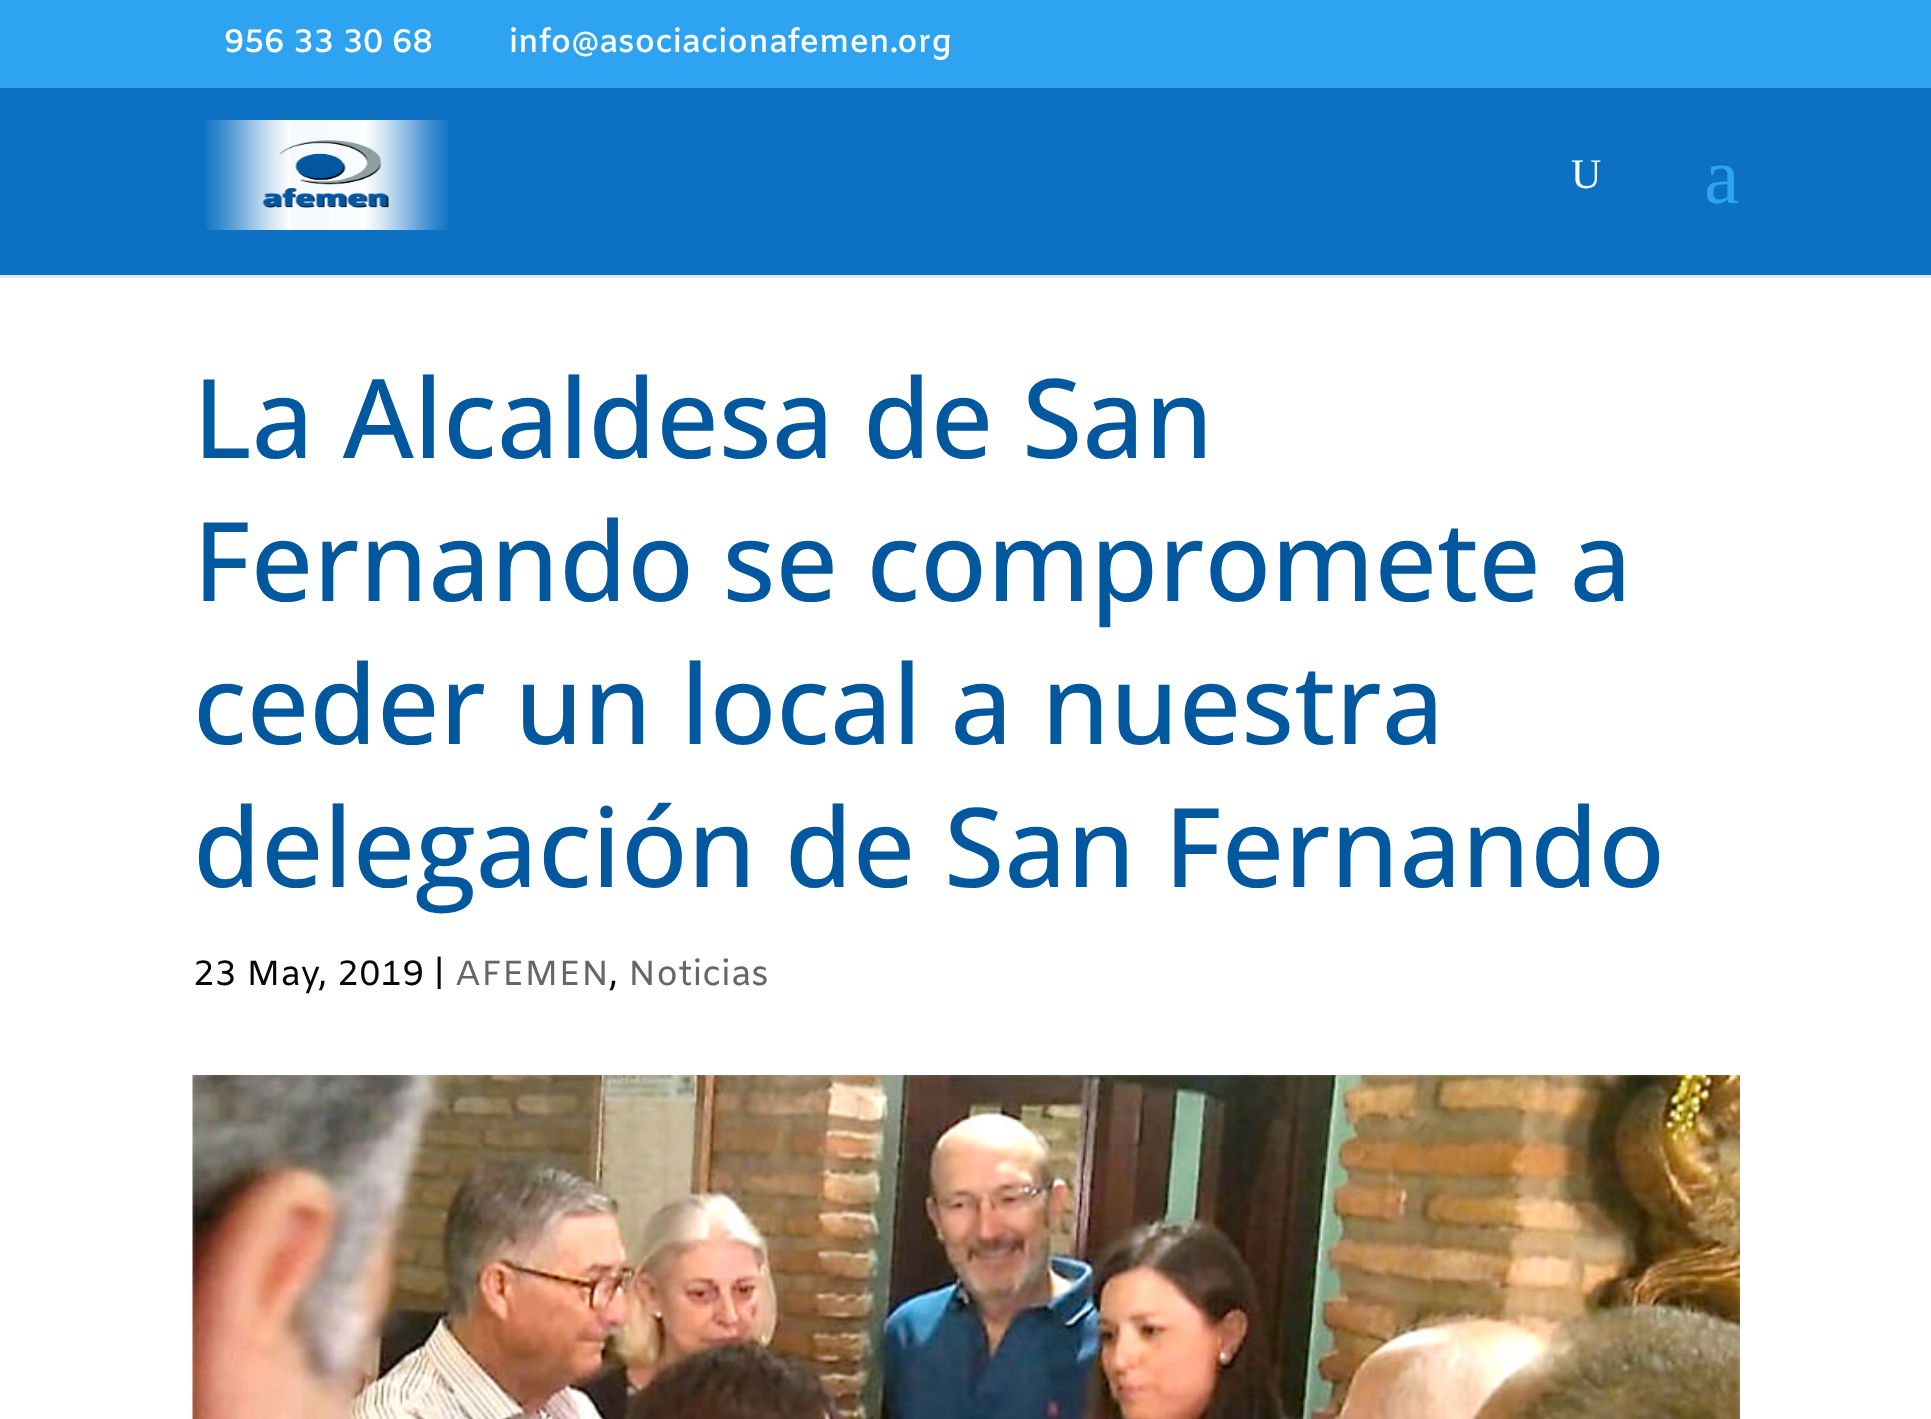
<svg xmlns="http://www.w3.org/2000/svg" xmlns:xlink="http://www.w3.org/1999/xlink" width="1931" height="1419" viewBox="0 0 1931 1419">
<style>
.cls-1{font:600 32.5px Amiko;fill:#fafcfe}
.cls-2{font:42px Liberation Serif;fill:#fafcfe}
.cls-3{font:80px Liberation Serif;fill:#2ea3f2}
.cls-4{font:500 110px Open Sans;fill:#01589f}
.cls-5{font:35px Amiko;fill:#070707}
.cls-6{font:35px Amiko;fill:#666666}
</style>
<rect width="100%" height="100%" fill="#ffffff"/>
<rect fill="#2ea3f2" x="0" y="0" width="1931" height="88"/>
<path fill="#e6e6e6" d="M0 275V278H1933V78H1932V275Z"/>
<rect fill="#0c71c3" x="0" y="88" width="1931" height="187"/>
<image xlink:href="image0.png" x="205" y="120" width="243" height="110"/>
<image xlink:href="image1.png" x="192" y="1075" width="1548" height="344"/>
<text class="cls-1" x="224" y="52">956 33 30 68</text>
<text class="cls-1" x="509" y="52">info@asociacionafemen.org</text>
<text class="cls-2" x="1571" y="188">U</text>
<text class="cls-3" x="1704" y="203">a</text>
<text class="cls-4"><tspan x="193" y="458">La Alcaldesa de San</tspan><tspan x="193" y="601">Fernando se compromete a</tspan><tspan x="193" y="744">ceder un local a nuestra</tspan><tspan x="193" y="887">delegación de San Fernando</tspan></text>
<text class="cls-5" x="193" y="985">23 May, 2019 |</text>
<text class="cls-6" x="455" y="985">AFEMEN</text>
<text class="cls-5" x="609" y="985">,</text>
<text class="cls-6" x="628" y="985">Noticias</text>
</svg>
